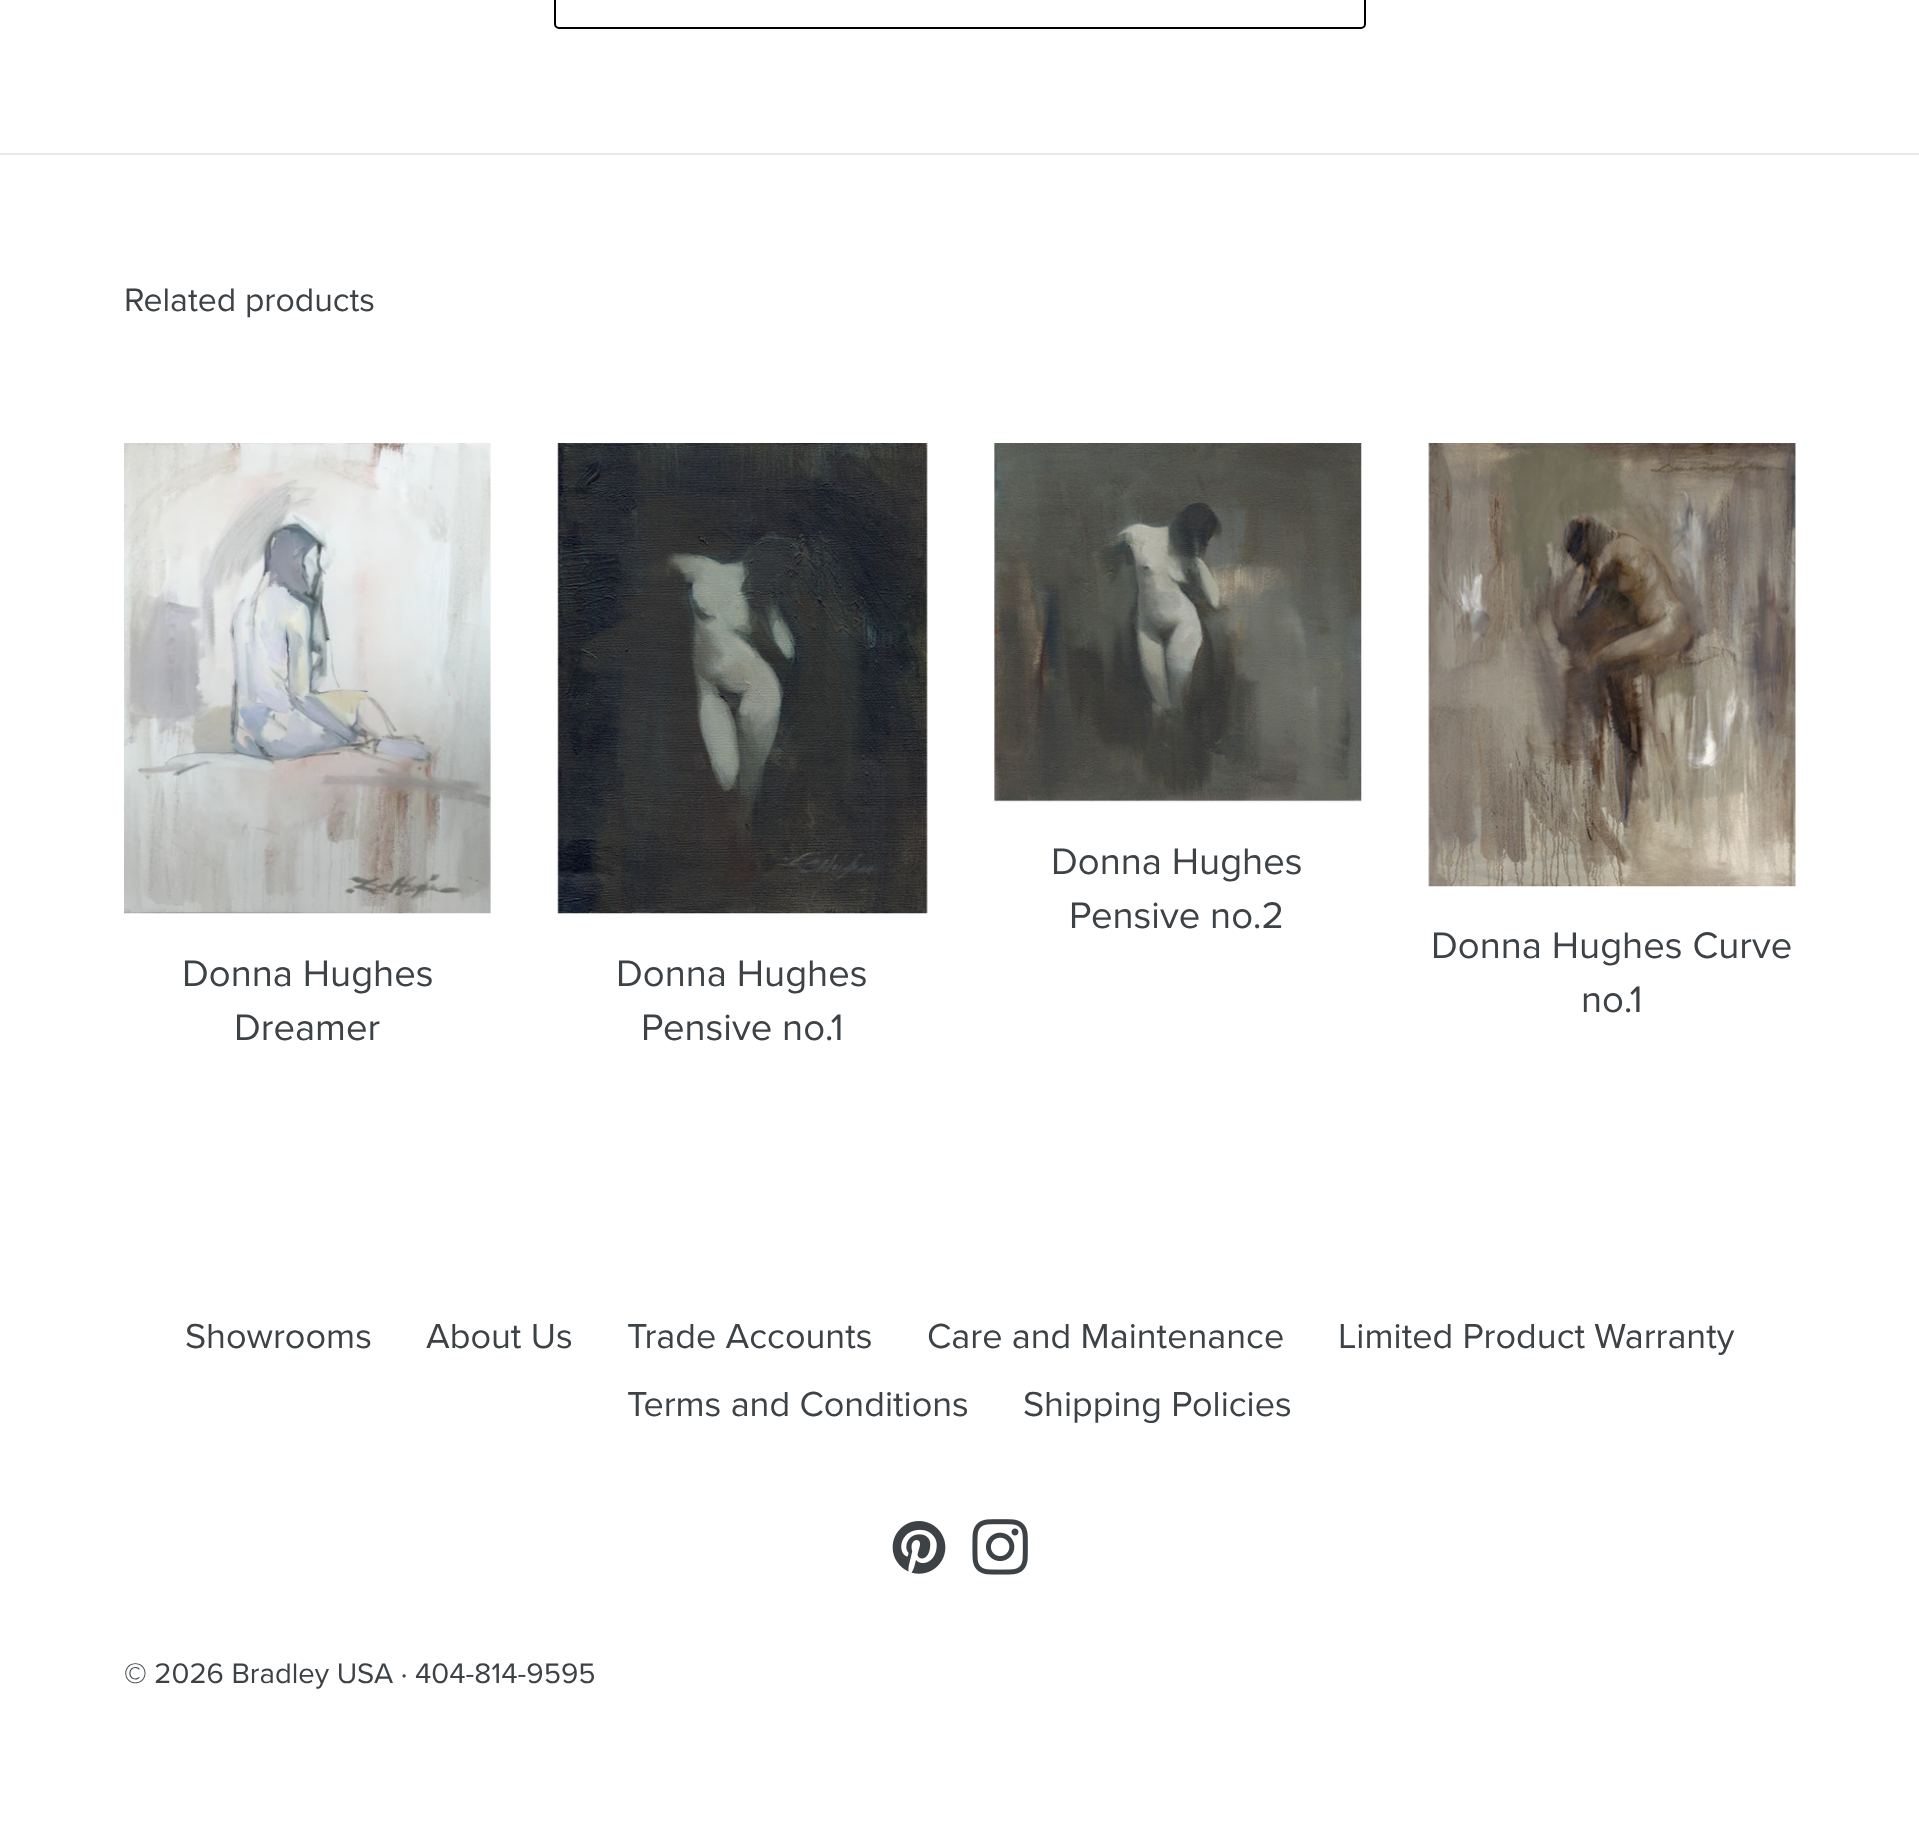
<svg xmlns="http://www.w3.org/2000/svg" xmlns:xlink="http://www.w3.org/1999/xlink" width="1919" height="1821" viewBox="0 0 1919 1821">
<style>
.cls-1{font:33.75px Proxima Nova;fill:#3d4246}
.cls-2{font:38.25px Proxima Nova;fill:#3d4246}
.cls-3{font:36px Proxima Nova;fill:#3d4246}
.cls-4{font:29.25px Proxima Nova;fill:#3d4246}
</style>
<rect width="100%" height="100%" fill="#ffffff"/>
<rect fill="none" stroke="#000000" stroke-width="2" x="555" y="-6" width="810" height="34" rx="4"/>
<rect fill="#e8e9eb" x="0" y="153" width="1919" height="2"/>
<image xlink:href="image0.png" x="994" y="443" width="368" height="359"/>
<image xlink:href="image1.png" x="124" y="443" width="367" height="471"/>
<image xlink:href="image2.png" x="557" y="443" width="371" height="471"/>
<image xlink:href="image3.png" x="1428" y="443" width="368" height="444"/>
<image xlink:href="image4.png" x="892" y="1521" width="54" height="53"/>
<image xlink:href="image5.png" x="972" y="1519" width="56" height="56"/>
<text class="cls-1" x="124" y="311">Related products</text>
<text class="cls-2" x="1051" y="874">Donna Hughes</text>
<text class="cls-2" x="1069" y="928">Pensive no.2</text>
<text class="cls-2" x="182" y="986">Donna Hughes</text>
<text class="cls-2" x="234" y="1040">Dreamer</text>
<text class="cls-2" x="616" y="986">Donna Hughes</text>
<text class="cls-2" x="641" y="1040">Pensive no.1</text>
<text class="cls-2" x="1431" y="958">Donna Hughes Curve</text>
<text class="cls-2" x="1581" y="1012">no.1</text>
<text class="cls-3" x="185" y="1348">Showrooms</text>
<text class="cls-3" x="426" y="1348">About Us</text>
<text class="cls-3" x="627" y="1348">Trade Accounts</text>
<text class="cls-3" x="927" y="1348">Care and Maintenance</text>
<text class="cls-3" x="1338" y="1348">Limited Product Warranty</text>
<text class="cls-3" x="627" y="1416">Terms and Conditions</text>
<text class="cls-3" x="1023" y="1416">Shipping Policies</text>
<text class="cls-4" x="124" y="1683">© 2026 Bradley USA · 404-814-9595</text>
</svg>
